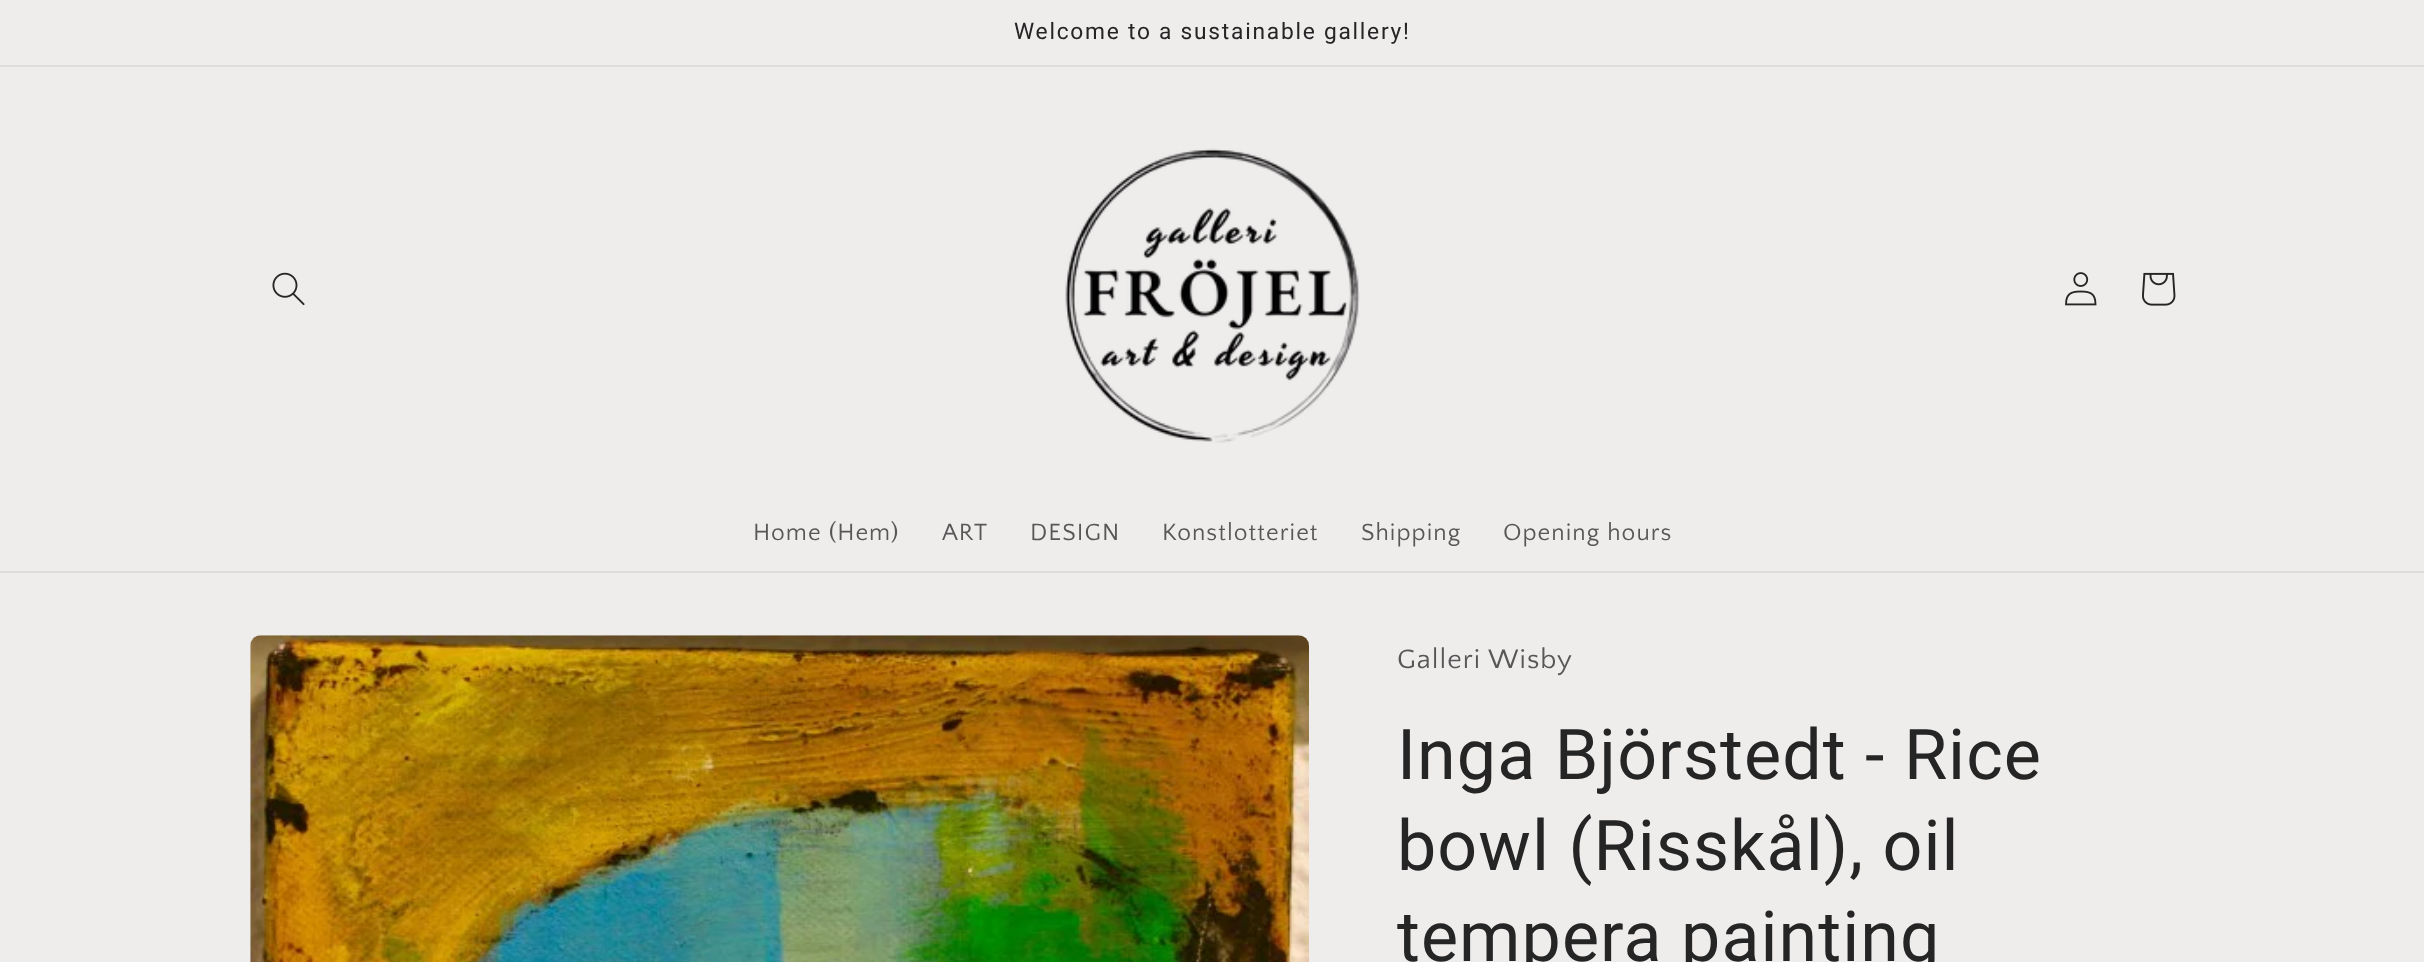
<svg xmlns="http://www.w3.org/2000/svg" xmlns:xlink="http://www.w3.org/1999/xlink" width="2424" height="962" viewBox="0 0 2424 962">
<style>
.cls-1{font:22.75px Roboto;letter-spacing:1.75px;fill:#252525}
.cls-2{font:24.5px Quattrocento Sans;letter-spacing:1.05px;fill:#585757}
.cls-3{font:28px Quattrocento Sans;letter-spacing:1.05px;fill:#585757}
.cls-4{font:70px Roboto;letter-spacing:1.05px;fill:#252525}
</style>
<rect width="100%" height="100%" fill="#efecec"/>
<rect fill="#dfdcdc" x="0" y="65" width="2424" height="2"/>
<rect fill="#dfdcdc" x="0" y="571" width="2424" height="2"/>
<image xlink:href="image0.png" x="272" y="272" width="33" height="34"/>
<image xlink:href="image1.png" x="1065" y="148" width="295" height="295"/>
<image xlink:href="image2.png" x="2065" y="272" width="32" height="34"/>
<image xlink:href="image3.png" x="2142" y="272" width="34" height="34"/>
<image xlink:href="image4.png" x="250" y="635" width="1059" height="327"/>
<text class="cls-1" x="1014" y="39">Welcome to a sustainable gallery!</text>
<text class="cls-2" x="753" y="540">Home (Hem)</text>
<text class="cls-2" x="942" y="540">ART</text>
<text class="cls-2" x="1030" y="540">DESIGN</text>
<text class="cls-2" x="1162" y="540">Konstlotteriet</text>
<text class="cls-2" x="1361" y="540">Shipping</text>
<text class="cls-2" x="1503" y="540">Opening hours</text>
<text class="cls-3" x="1397" y="668">Galleri Wisby</text>
<text class="cls-4"><tspan x="1397" y="779">Inga Björstedt - Rice</tspan><tspan x="1397" y="870">bowl (Risskål), oil</tspan><tspan x="1397" y="961">tempera painting</tspan></text>
</svg>
